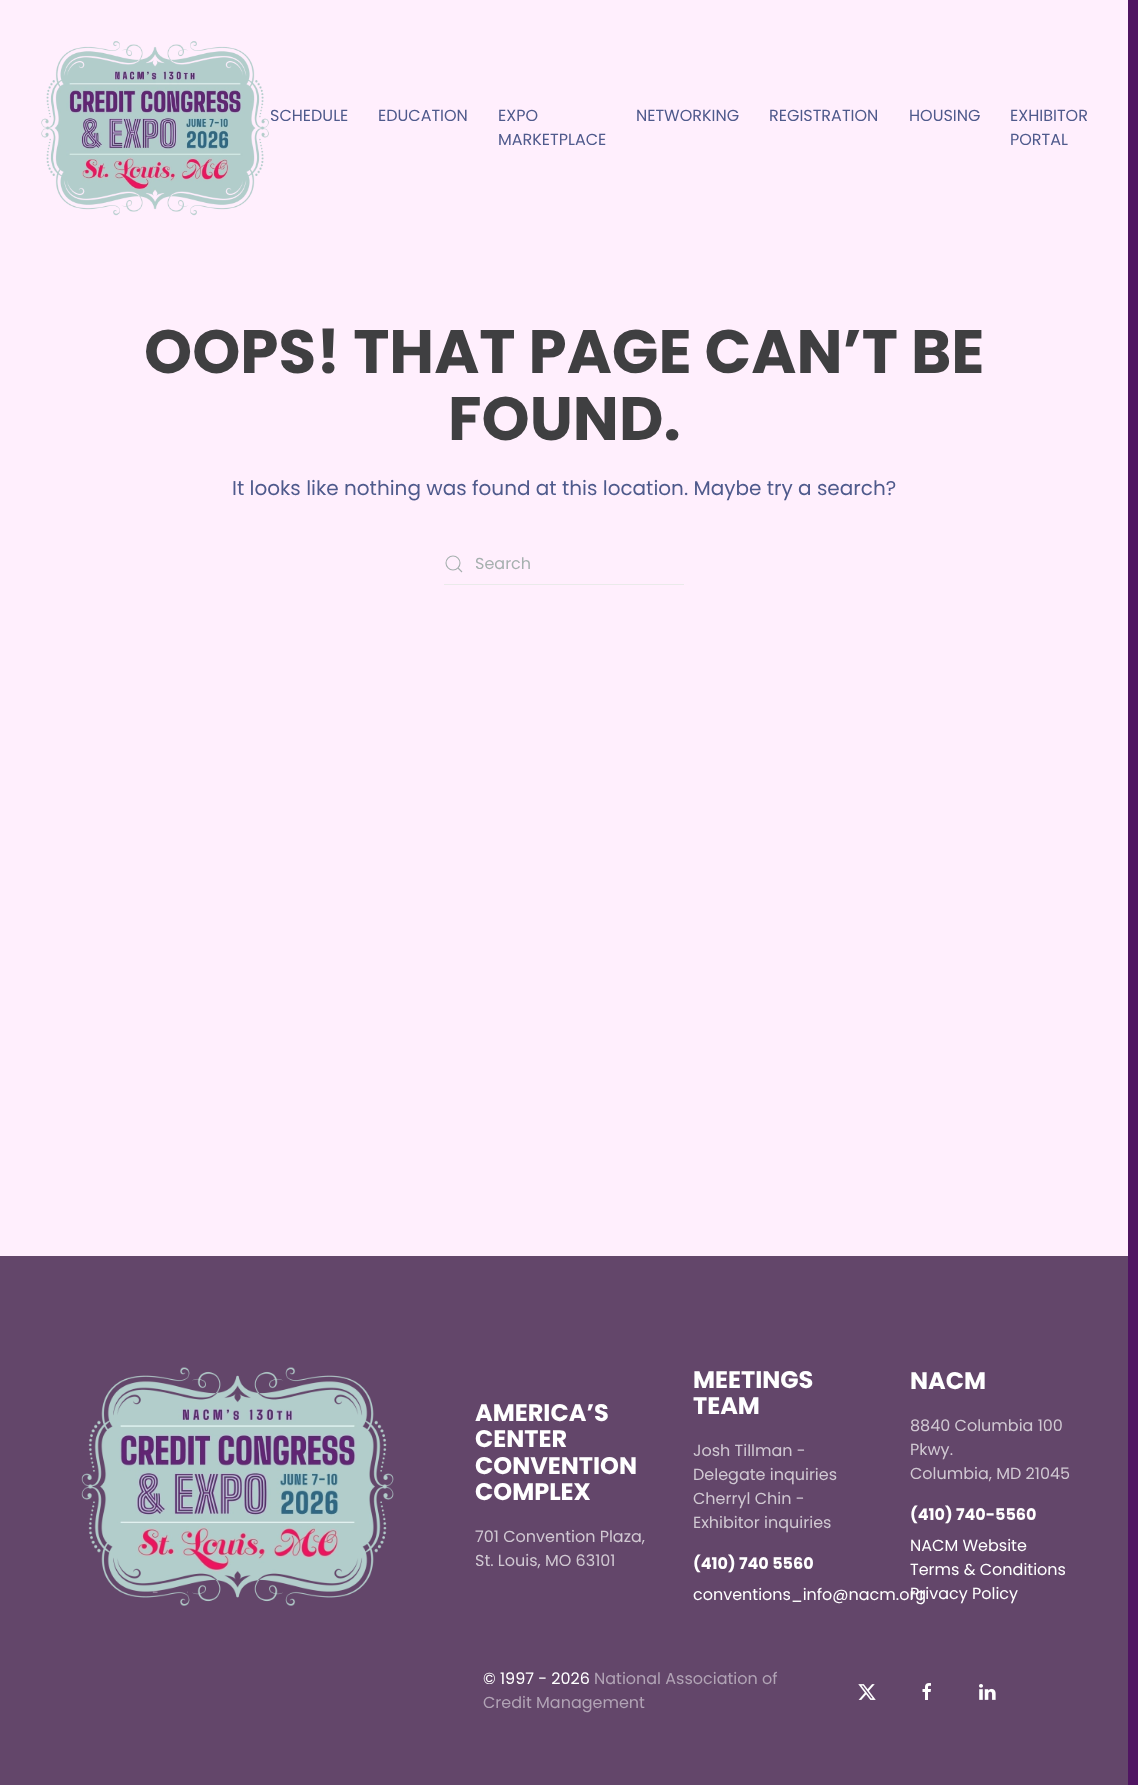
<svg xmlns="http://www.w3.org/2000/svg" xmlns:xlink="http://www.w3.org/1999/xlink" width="1138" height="1785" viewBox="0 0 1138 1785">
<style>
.cls-1{font:16px Poppins;fill:#4f5a8c}
.cls-2{font:bold 61.25px Poppins;fill:#3f3f41}
.cls-3{font:20px Poppins;fill:#4f5a8c}
.cls-4{font:16px Poppins;fill:#a6b0af}
.cls-5{font:bold 24px Poppins;fill:#ffffff}
.cls-6{font:16px Poppins;fill:#d0c8d2}
.cls-7{font:bold 16px Poppins;fill:#ffffff}
.cls-8{font:16px Poppins;fill:#ffffff}
.cls-9{font:16px Poppins;fill:#b1a3b5}
</style>
<rect width="100%" height="100%" fill="#501562"/>
<rect fill="#ffeffd" x="0" y="0" width="1128" height="1256"/>
<image xlink:href="image0.png" x="41" y="41" width="228" height="175"/>
<circle fill="none" stroke="#a6b0af" stroke-width="1.1" cx="453" cy="563" r="7"/>
<path fill="none" stroke="#a6b0af" stroke-width="1.1" d="M458 568L462 572Z"/>
<rect fill="#eaeaea" x="444" y="584" width="240" height="1"/>
<rect fill="#63466a" x="0" y="1256" width="1128" height="529"/>
<image xlink:href="image1.png" x="81" y="1367" width="313" height="239"/>
<image xlink:href="image2.png" x="858" y="1684" width="18" height="16"/>
<image xlink:href="image3.png" x="922" y="1683" width="9" height="17"/>
<image xlink:href="image4.png" x="979" y="1684" width="17" height="16"/>
<text class="cls-1" x="270" y="121">SCHEDULE</text>
<text class="cls-1" x="378" y="121">EDUCATION</text>
<text class="cls-1"><tspan x="498" y="121">EXPO</tspan><tspan x="498" y="145">MARKETPLACE</tspan></text>
<text class="cls-1" x="636" y="121">NETWORKING</text>
<text class="cls-1" x="769" y="121">REGISTRATION</text>
<text class="cls-1" x="909" y="121">HOUSING</text>
<text class="cls-1"><tspan x="1010" y="121">EXHIBITOR</tspan><tspan x="1010" y="145">PORTAL</tspan></text>
<text class="cls-2" x="144" y="373">OOPS! THAT PAGE CAN’T BE</text>
<text class="cls-2" x="448" y="440">FOUND.</text>
<text class="cls-3" x="232" y="495">It looks like nothing was found at this location. Maybe try a search?</text>
<text class="cls-4" x="475" y="569">Search</text>
<text class="cls-5"><tspan x="475" y="1421">AMERICA’S</tspan><tspan x="475" y="1447">CENTER</tspan><tspan x="475" y="1474">CONVENTION</tspan><tspan x="475" y="1500">COMPLEX</tspan></text>
<text class="cls-6"><tspan x="475" y="1542">701 Convention Plaza,</tspan><tspan x="475" y="1566">St. Louis, MO 63101</tspan></text>
<text class="cls-5"><tspan x="693" y="1388">MEETINGS</tspan><tspan x="693" y="1414">TEAM</tspan></text>
<text class="cls-6"><tspan x="693" y="1456">Josh Tillman -</tspan><tspan x="693" y="1480">Delegate inquiries</tspan><tspan x="693" y="1504">Cherryl Chin -</tspan><tspan x="693" y="1528">Exhibitor inquiries</tspan></text>
<text class="cls-7" x="693" y="1569">(410) 740 5560</text>
<text class="cls-8" x="693" y="1600">conventions_info@nacm.org</text>
<text class="cls-5" x="910" y="1389">NACM</text>
<text class="cls-6"><tspan x="910" y="1431">8840 Columbia 100</tspan><tspan x="910" y="1455">Pkwy.</tspan><tspan x="910" y="1479">Columbia, MD 21045</tspan></text>
<text class="cls-7" x="910" y="1520">(410) 740-5560</text>
<text class="cls-8"><tspan x="910" y="1551">NACM Website</tspan><tspan x="910" y="1575">Terms &amp; Conditions</tspan><tspan x="910" y="1599">Privacy Policy</tspan></text>
<text class="cls-8" x="483" y="1684">© 1997 - 2026</text>
<text class="cls-9" x="594" y="1684">National Association of</text>
<text class="cls-9" x="483" y="1708">Credit Management</text>
</svg>
